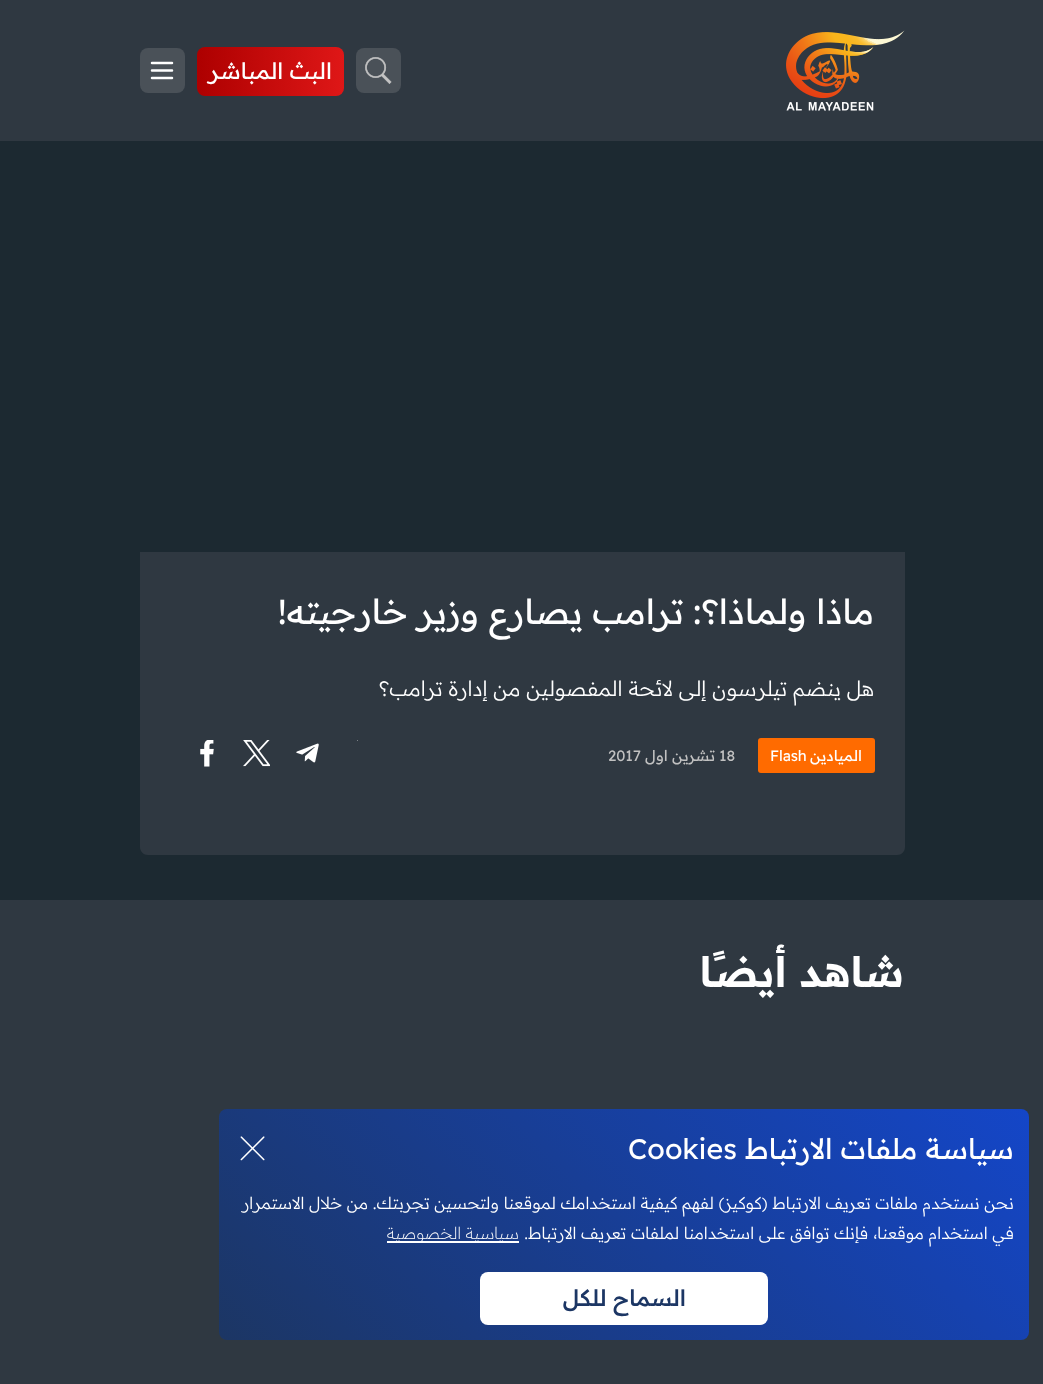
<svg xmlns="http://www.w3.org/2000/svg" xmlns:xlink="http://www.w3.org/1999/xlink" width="1043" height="1384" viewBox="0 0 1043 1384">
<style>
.cls-1{font:22.5px Readex Pro;direction:rtl;fill:#ffffff}
.cls-2{font:34.5px Readex Pro;direction:rtl;fill:#ffffff}
.cls-3{font:300 21px Readex Pro;direction:rtl;fill:#ffffff}
.cls-4{font:15px Readex Pro;direction:rtl;fill:#ffffff}
.cls-5{font:15px Readex Pro;fill:#ffffff}
.cls-6{font:15px Readex Pro;fill:#c1c1c1}
.cls-7{font:15px Readex Pro;direction:rtl;fill:#c1c1c1}
.cls-8{font:600 42px Readex Pro;direction:rtl;fill:#ffffff}
.cls-9{font:28.5px Readex Pro;direction:rtl;fill:#ffffff}
.cls-10{font:28.5px Readex Pro;fill:#ffffff}
.cls-11{font:300 16.5px Readex Pro;direction:rtl;fill:#ffffff}
.cls-12{font:200 16.5px Readex Pro;direction:rtl;fill:#ffffff}
.cls-13{font:500 22.5px Readex Pro;direction:rtl;fill:#1c3664}
</style>
<defs>
<linearGradient id="g1" gradientUnits="userSpaceOnUse" x1="344" y1="71" x2="197" y2="71"><stop offset="0" stop-color="#df1717"/><stop offset="1" stop-color="#ad0000"/></linearGradient>
<linearGradient id="g2" gradientUnits="userSpaceOnUse" x1="364" y1="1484" x2="884" y2="964"><stop offset="0" stop-color="#1c3664"/><stop offset="1" stop-color="#1446c8"/></linearGradient>
</defs>
<rect width="100%" height="100%" fill="#1c2931"/>
<rect fill="#2f3841" x="0" y="0" width="1043" height="141"/>
<image xlink:href="image0.png" x="786" y="30" width="119" height="81"/>
<rect fill="#4a5158" x="356" y="48" width="45" height="45" rx="8"/>
<image xlink:href="image1.png" x="365" y="57" width="27" height="27"/>
<rect fill="url(#g1)" x="197" y="47" width="147" height="49" rx="8"/>
<rect fill="#4a5158" x="140" y="48" width="45" height="45" rx="8"/>
<path fill="none" stroke="#ffffff" stroke-width="2.5" stroke-linecap="round" d="M152 78H172M152 70.5H172M152 63H172"/>
<path fill="#2f3841" d="M140 552H905V847C905 851.5 901.5 855 897 855H148C143.5 855 140 851.5 140 847Z"/>
<rect fill="#ff6b00" x="758" y="738" width="117" height="35" rx="3"/>
<rect fill="#7a8085" x="357" y="740" width="1" height="1"/>
<image xlink:href="image2.png" x="243" y="740" width="27" height="27"/>
<image xlink:href="image3.png" x="200" y="740" width="14" height="27"/>
<image xlink:href="image4.png" x="296" y="743" width="23" height="20"/>
<rect fill="#2f3841" x="0" y="900" width="1043" height="484"/>
<rect fill="url(#g2)" x="219" y="1109" width="810" height="231" rx="8"/>
<image xlink:href="image5.png" x="240" y="1136" width="25" height="25"/>
<rect fill="#ffffff" x="387" y="1241" width="132" height="2"/>
<rect fill="#ffffff" x="480" y="1272" width="288" height="53" rx="8"/>
<text class="cls-1" x="332" y="79">البث المباشر</text>
<text class="cls-2" x="874" y="624">ماذا ولماذا؟: ترامب يصارع وزير خارجيته!</text>
<text class="cls-3" x="874" y="696">هل ينضم تيلرسون إلى لائحة المفصولين من إدارة ترامب؟</text>
<text class="cls-4" x="862" y="761">الميادين</text>
<text class="cls-5" x="770" y="761">Flash</text>
<text class="cls-6" x="719" y="761">18</text>
<text class="cls-7" x="715" y="761">تشرين اول</text>
<text class="cls-6" x="608" y="761">2017</text>
<text class="cls-8" x="904" y="987">شاهد أيضًا</text>
<text class="cls-9" x="1014" y="1159">سياسة ملفات الارتباط</text>
<text class="cls-10" x="628" y="1159">Cookies</text>
<text class="cls-11"><tspan x="1014" y="1209">نحن نستخدم ملفات تعريف الارتباط (كوكيز) لفهم كيفية استخدامك لموقعنا ولتحسين تجربتك. من خلال الاستمرار</tspan><tspan x="1014" y="1239">في استخدام موقعنا، فإنك توافق على استخدامنا لملفات تعريف الارتباط.</tspan></text>
<text class="cls-12" x="519" y="1239">سياسية الخصوصية</text>
<text class="cls-13" x="686" y="1306">السماح للكل</text>
</svg>
